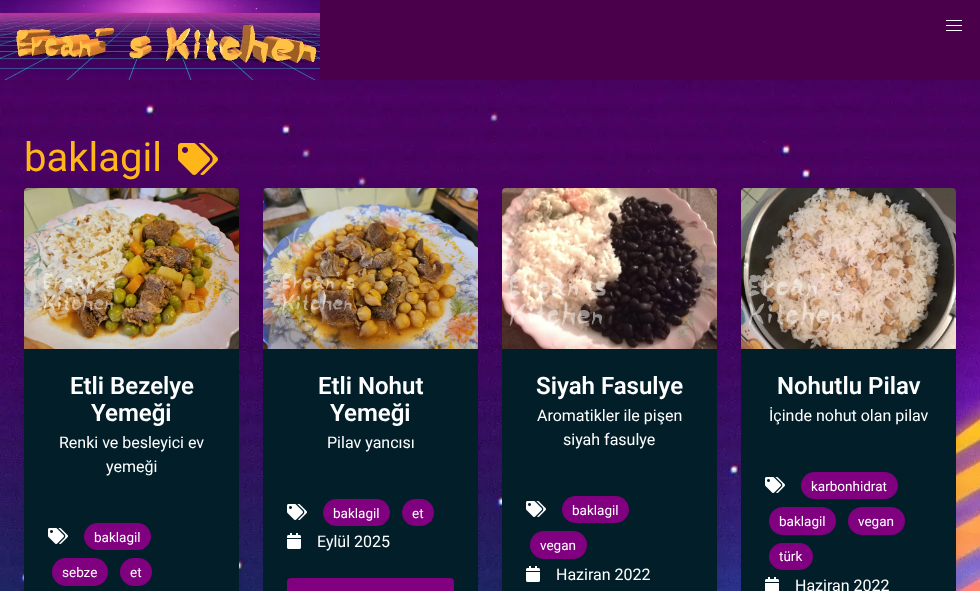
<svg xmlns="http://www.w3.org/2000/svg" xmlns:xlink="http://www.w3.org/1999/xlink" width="980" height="591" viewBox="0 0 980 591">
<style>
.cls-1{font:40px Roboto;fill:#ffb619}
.cls-2{font:600 24px Roboto;fill:#ffffff}
.cls-3{font:16px Roboto;fill:#ffffff}
.cls-4{font:13.5px Roboto;fill:#ffffff}
</style>
<rect width="100%" height="100%" fill="#ffffff"/>
<rect fill="#4b004b" x="320" y="0" width="660" height="80"/>
<image xlink:href="image0.png" x="0" y="0" width="320" height="80"/>
<rect fill="#ffffff" x="946" y="20" width="16" height="1"/>
<rect fill="#ffffff" x="946" y="25" width="16" height="1"/>
<rect fill="#ffffff" x="946" y="30" width="16" height="1"/>
<image xlink:href="image1.png" x="0" y="80" width="980" height="511"/>
<image xlink:href="image2.png" x="178" y="143" width="40" height="32"/>
<rect fill="#0a0a0a" fill-opacity="0.1" filter="blur(8px)" x="26" y="198" width="211" height="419" rx="2"/>
<image xlink:href="image3.png" x="24" y="188" width="215" height="161"/>
<rect fill="#021e29" x="24" y="349" width="215" height="242"/>
<image xlink:href="image4.png" x="48" y="528" width="20" height="16"/>
<rect fill="#800080" x="84" y="523" width="67" height="27" rx="13.5"/>
<rect fill="#800080" x="52" y="558" width="56" height="28" rx="14"/>
<rect fill="#800080" x="120" y="558" width="32" height="28" rx="14"/>
<rect fill="#0a0a0a" fill-opacity="0.1" filter="blur(8px)" x="265" y="198" width="211" height="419" rx="2"/>
<image xlink:href="image5.png" x="263" y="188" width="215" height="161"/>
<rect fill="#021e29" x="263" y="349" width="215" height="242"/>
<image xlink:href="image4.png" x="287" y="504" width="20" height="16"/>
<rect fill="#800080" x="323" y="499" width="67" height="27" rx="13.5"/>
<rect fill="#800080" x="402" y="499" width="32" height="27" rx="13.5"/>
<image xlink:href="image6.png" x="287" y="533" width="14" height="16"/>
<rect fill="#800080" x="287" y="578" width="167" height="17" rx="4"/>
<rect fill="#0a0a0a" fill-opacity="0.1" filter="blur(8px)" x="504" y="198" width="211" height="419" rx="2"/>
<image xlink:href="image7.png" x="502" y="188" width="215" height="161"/>
<rect fill="#021e29" x="502" y="349" width="215" height="242"/>
<image xlink:href="image4.png" x="526" y="501" width="20" height="16"/>
<rect fill="#800080" x="562" y="496" width="67" height="27" rx="13.5"/>
<rect fill="#800080" x="530" y="531" width="57" height="28" rx="14"/>
<image xlink:href="image6.png" x="526" y="566" width="14" height="16"/>
<rect fill="#0a0a0a" fill-opacity="0.1" filter="blur(8px)" x="743" y="198" width="211" height="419" rx="2"/>
<image xlink:href="image8.png" x="741" y="188" width="215" height="161"/>
<rect fill="#021e29" x="741" y="349" width="215" height="242"/>
<image xlink:href="image4.png" x="765" y="477" width="20" height="16"/>
<rect fill="#800080" x="801" y="472" width="97" height="27" rx="13.5"/>
<rect fill="#800080" x="769" y="507" width="67" height="28" rx="14"/>
<rect fill="#800080" x="848" y="507" width="57" height="28" rx="14"/>
<rect fill="#800080" x="769" y="543" width="44" height="27" rx="13.5"/>
<image xlink:href="image9.png" x="765" y="577" width="14" height="14"/>
<text class="cls-1" x="24" y="171">baklagil</text>
<text class="cls-2" x="70" y="394">Etli Bezelye</text>
<text class="cls-2" x="91" y="421">Yemeği</text>
<text class="cls-3" x="59" y="448">Renki ve besleyici ev</text>
<text class="cls-3" x="106" y="472">yemeği</text>
<text class="cls-4" x="94" y="542">baklagil</text>
<text class="cls-4" x="62" y="577">sebze</text>
<text class="cls-4" x="130" y="577">et</text>
<text class="cls-2" x="318" y="394">Etli Nohut</text>
<text class="cls-2" x="330" y="421">Yemeği</text>
<text class="cls-3" x="327" y="448">Pilav yancısı</text>
<text class="cls-4" x="333" y="518">baklagil</text>
<text class="cls-4" x="412" y="518">et</text>
<text class="cls-3" x="317" y="547">Eylül 2025</text>
<text class="cls-2" x="536" y="394">Siyah Fasulye</text>
<text class="cls-3" x="537" y="421">Aromatikler ile pişen</text>
<text class="cls-3" x="563" y="445">siyah fasulye</text>
<text class="cls-4" x="572" y="515">baklagil</text>
<text class="cls-4" x="540" y="550">vegan</text>
<text class="cls-3" x="556" y="580">Haziran 2022</text>
<text class="cls-2" x="777" y="394">Nohutlu Pilav</text>
<text class="cls-3" x="769" y="421">İçinde nohut olan pilav</text>
<text class="cls-4" x="811" y="491">karbonhidrat</text>
<text class="cls-4" x="779" y="526">baklagil</text>
<text class="cls-4" x="858" y="526">vegan</text>
<text class="cls-4" x="779" y="561">türk</text>
<text class="cls-3" x="795" y="591">Haziran 2022</text>
</svg>
